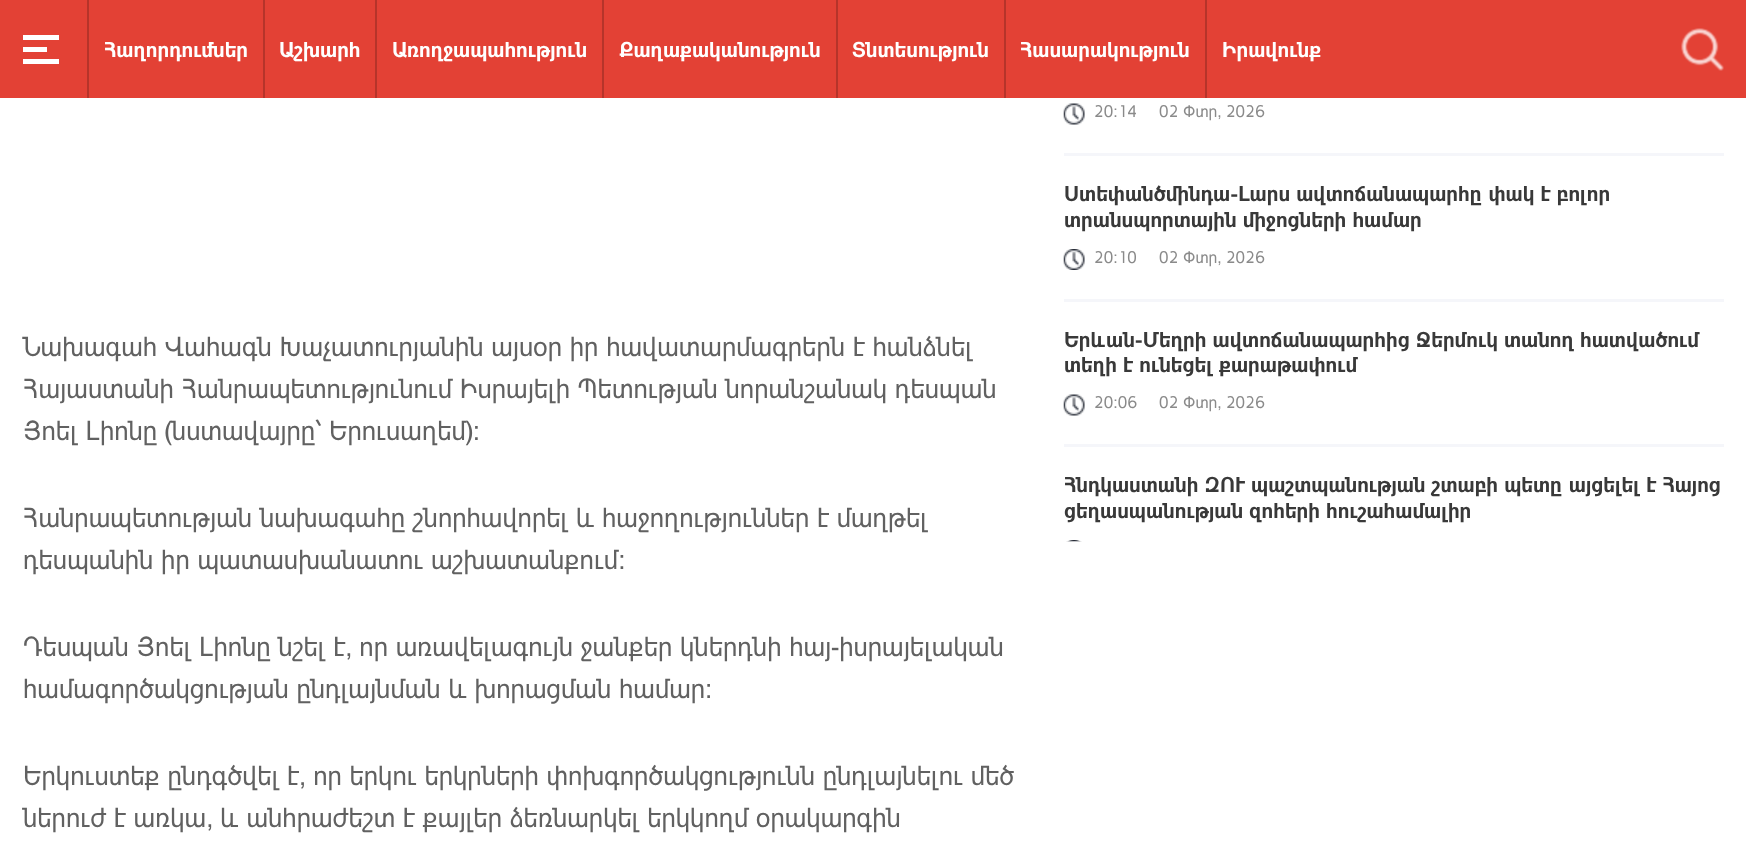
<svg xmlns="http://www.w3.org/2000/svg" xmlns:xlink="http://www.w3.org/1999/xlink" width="1746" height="855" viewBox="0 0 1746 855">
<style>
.cls-1{font:bold 21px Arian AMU;fill:#ffffff}
.cls-2{font:27px Arian AMU;fill:#616161}
.cls-3{font:16.5px Arian AMU;fill:#8a8a8a}
.cls-4{font:bold 21px Arian AMU;fill:#393939}
</style>
<rect width="100%" height="100%" fill="#ffffff"/>
<rect fill="#e34135" x="0" y="0" width="1746" height="98"/>
<rect fill="#ffffff" x="23" y="35" width="36" height="5"/>
<rect fill="#ffffff" x="23" y="47" width="24" height="5"/>
<rect fill="#ffffff" x="23" y="59" width="36" height="5"/>
<rect fill="#b6342a" x="87" y="0" width="2" height="98"/>
<rect fill="#b6342a" x="263" y="0" width="2" height="98"/>
<rect fill="#b6342a" x="375" y="0" width="2" height="98"/>
<rect fill="#b6342a" x="602" y="0" width="2" height="98"/>
<rect fill="#b6342a" x="836" y="0" width="2" height="98"/>
<rect fill="#b6342a" x="1004" y="0" width="2" height="98"/>
<rect fill="#b6342a" x="1205" y="0" width="2" height="98"/>
<image xlink:href="image0.png" x="1681" y="28" width="43" height="43"/>
<rect fill="#f5f6fa" x="1064" y="153" width="660" height="3"/>
<image xlink:href="image1.png" x="1063" y="103" width="22" height="22"/>
<rect fill="#f5f6fa" x="1064" y="299" width="660" height="3"/>
<image xlink:href="image2.png" x="1063" y="249" width="22" height="21"/>
<rect fill="#f5f6fa" x="1064" y="444" width="660" height="3"/>
<image xlink:href="image1.png" x="1063" y="394" width="22" height="22"/>
<image xlink:href="image3.png" x="1066" y="540" width="16" height="2"/>
<text class="cls-1" x="104" y="57">Հաղորդումներ</text>
<text class="cls-1" x="279" y="57">Աշխարհ</text>
<text class="cls-1" x="392" y="57">Առողջապահություն</text>
<text class="cls-1" x="619" y="57">Քաղաքականություն</text>
<text class="cls-1" x="852" y="57">Տնտեսություն</text>
<text class="cls-1" x="1020" y="57">Հասարակություն</text>
<text class="cls-1" x="1222" y="57">Իրավունք</text>
<text class="cls-2"><tspan x="23" y="356">Նախագահ Վահագն Խաչատուրյանին այսօր իր հավատարմագրերն է հանձնել</tspan><tspan x="23" y="398">Հայաստանի Հանրապետությունում Իսրայելի Պետության նորանշանակ դեսպան</tspan><tspan x="23" y="440">Յոել Լիոնը (նստավայրը՝ Երուսաղեմ):</tspan></text>
<text class="cls-2"><tspan x="23" y="527">Հանրապետության նախագահը շնորհավորել և հաջողություններ է մաղթել</tspan><tspan x="23" y="569">դեսպանին իր պատասխանատու աշխատանքում:</tspan></text>
<text class="cls-2"><tspan x="23" y="656">Դեսպան Յոել Լիոնը նշել է, որ առավելագույն ջանքեր կներդնի հայ-իսրայելական</tspan><tspan x="23" y="698">համագործակցության ընդլայնման և խորացման համար:</tspan></text>
<text class="cls-2"><tspan x="23" y="785">Երկուստեք ընդգծվել է, որ երկու երկրների փոխգործակցությունն ընդլայնելու մեծ</tspan><tspan x="23" y="827">ներուժ է առկա, և անհրաժեշտ է քայլեր ձեռնարկել երկկողմ օրակարգին</tspan></text>
<text class="cls-3" x="1094" y="117">20:14</text>
<text class="cls-3" x="1159" y="117">02 Փտր, 2026</text>
<text class="cls-4"><tspan x="1064" y="201">Ստեփանծմինդա-Լարս ավտոճանապարհը փակ է բոլոր</tspan><tspan x="1064" y="227">տրանսպորտային միջոցների համար</tspan></text>
<text class="cls-3" x="1094" y="263">20:10</text>
<text class="cls-3" x="1159" y="263">02 Փտր, 2026</text>
<text class="cls-4"><tspan x="1064" y="347">Երևան-Մեղրի ավտոճանապարհից Ջերմուկ տանող հատվածում</tspan><tspan x="1064" y="372">տեղի է ունեցել քարաթափում</tspan></text>
<text class="cls-3" x="1094" y="408">20:06</text>
<text class="cls-3" x="1159" y="408">02 Փտր, 2026</text>
<text class="cls-4"><tspan x="1064" y="492">Հնդկաստանի ԶՈՒ պաշտպանության շտաբի պետը այցելել է Հայոց</tspan><tspan x="1064" y="518">ցեղասպանության զոհերի հուշահամալիր</tspan></text>
</svg>
